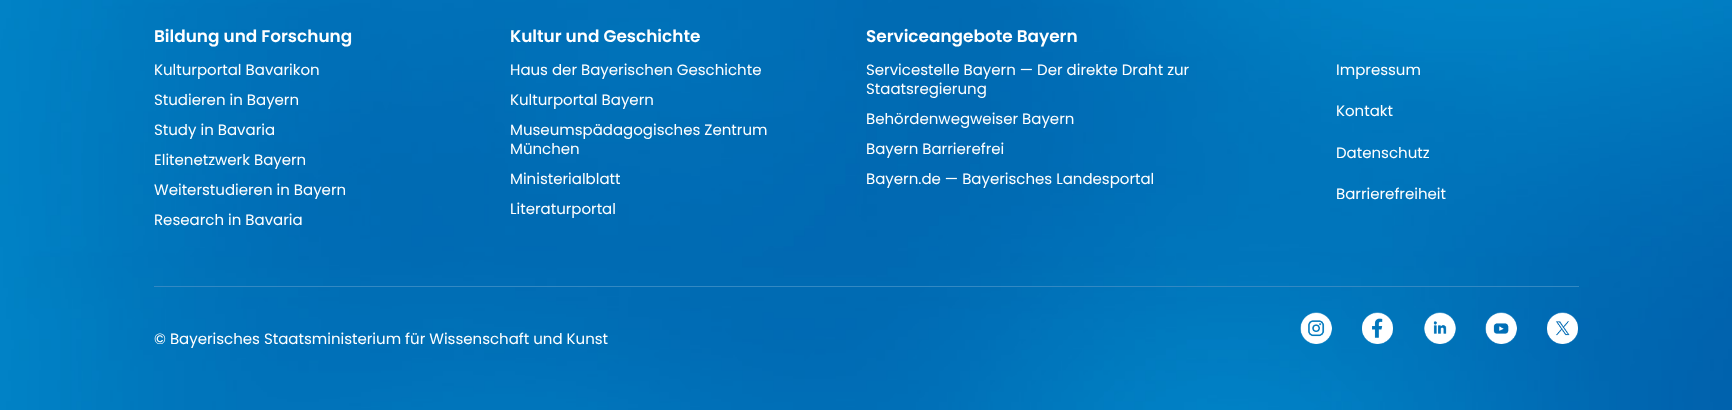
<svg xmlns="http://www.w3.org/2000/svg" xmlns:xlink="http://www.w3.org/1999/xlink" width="1732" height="410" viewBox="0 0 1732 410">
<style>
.cls-1{font:600 16.9px Poppins;fill:#ffffff}
.cls-2{font:15px Poppins;fill:#ffffff}
</style>
<rect width="100%" height="100%" fill="#ffffff"/>
<image xlink:href="image0.png" x="0" y="0" width="1732" height="410"/>
<rect fill="#3389c3" x="154" y="286" width="1425" height="1"/>
<image xlink:href="image1.png" x="1300" y="312" width="32" height="32"/>
<image xlink:href="image2.png" x="1362" y="312" width="31" height="32"/>
<image xlink:href="image3.png" x="1424" y="312" width="32" height="32"/>
<image xlink:href="image4.png" x="1485" y="312" width="32" height="32"/>
<image xlink:href="image5.png" x="1547" y="312" width="31" height="32"/>
<text class="cls-1" x="154" y="42">Bildung und Forschung</text>
<text class="cls-2" x="154" y="75">Kulturportal Bavarikon</text>
<text class="cls-2" x="154" y="105">Studieren in Bayern</text>
<text class="cls-2" x="154" y="135">Study in Bavaria</text>
<text class="cls-2" x="154" y="165">Elitenetzwerk Bayern</text>
<text class="cls-2" x="154" y="195">Weiterstudieren in Bayern</text>
<text class="cls-2" x="154" y="225">Research in Bavaria</text>
<text class="cls-1" x="510" y="42">Kultur und Geschichte</text>
<text class="cls-2" x="510" y="75">Haus der Bayerischen Geschichte</text>
<text class="cls-2" x="510" y="105">Kulturportal Bayern</text>
<text class="cls-2"><tspan x="510" y="135">Museumspädagogisches Zentrum</tspan><tspan x="510" y="154">München</tspan></text>
<text class="cls-2" x="510" y="184">Ministerialblatt</text>
<text class="cls-2" x="510" y="214">Literaturportal</text>
<text class="cls-1" x="866" y="42">Serviceangebote Bayern</text>
<text class="cls-2"><tspan x="866" y="75">Servicestelle Bayern — Der direkte Draht zur</tspan><tspan x="866" y="94">Staatsregierung</tspan></text>
<text class="cls-2" x="866" y="124">Behördenwegweiser Bayern</text>
<text class="cls-2" x="866" y="154">Bayern Barrierefrei</text>
<text class="cls-2" x="866" y="184">Bayern.de — Bayerisches Landesportal</text>
<text class="cls-2" x="1336" y="75">Impressum</text>
<text class="cls-2" x="1336" y="116">Kontakt</text>
<text class="cls-2" x="1336" y="158">Datenschutz</text>
<text class="cls-2" x="1336" y="199">Barrierefreiheit</text>
<text class="cls-2" x="154" y="344">© Bayerisches Staatsministerium für Wissenschaft und Kunst</text>
</svg>
